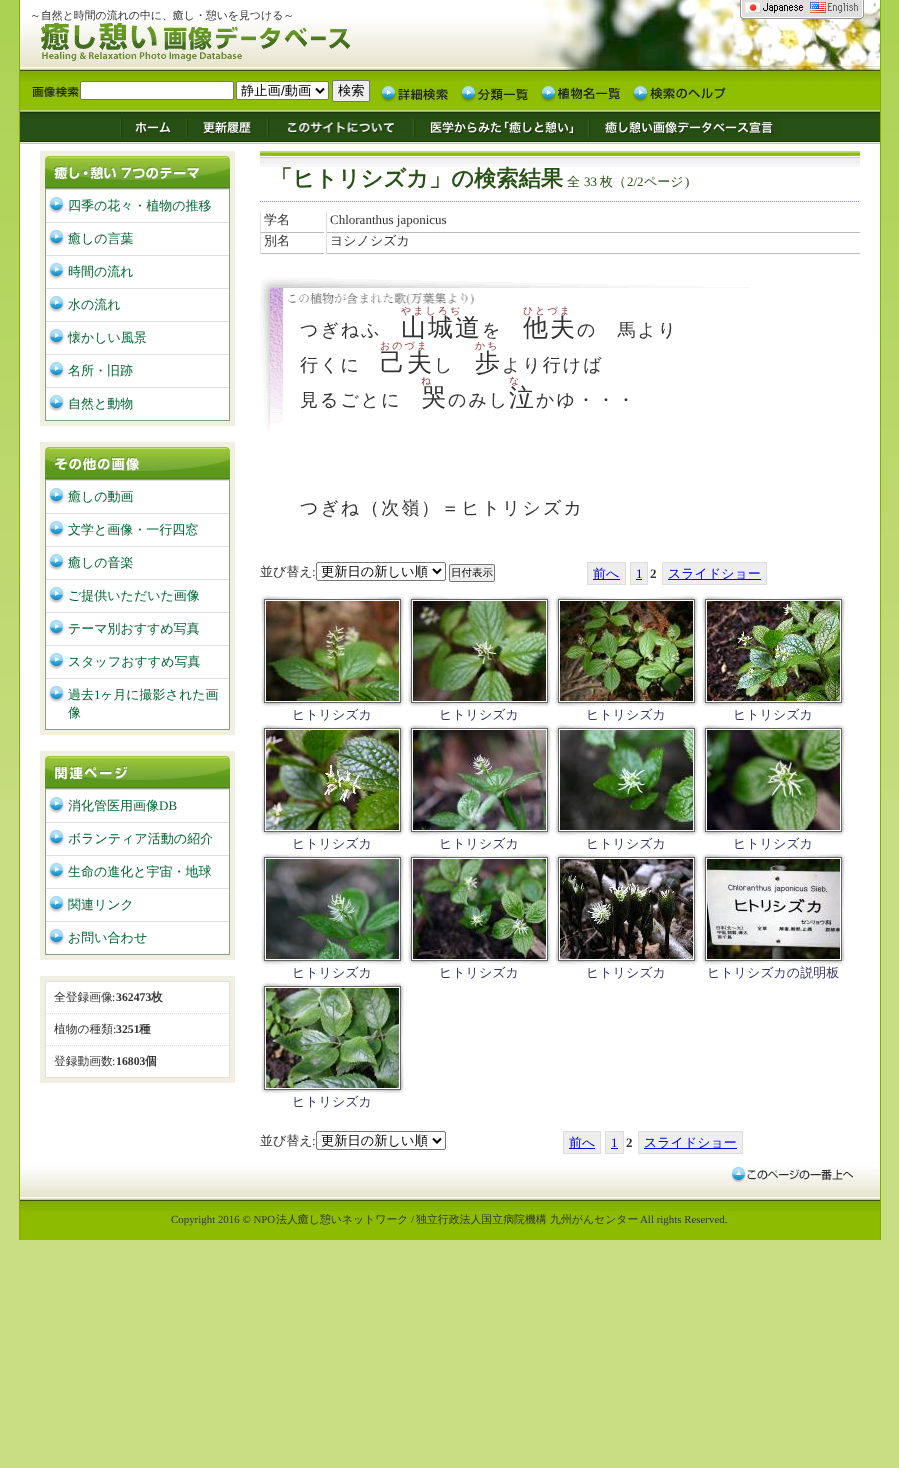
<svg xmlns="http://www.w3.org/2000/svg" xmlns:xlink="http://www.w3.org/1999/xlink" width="899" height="1468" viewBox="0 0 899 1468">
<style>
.cls-1{font:500 10.9px WenQuanYi Zen Hei;fill:#333333}
.cls-2{font:500 13.25px WenQuanYi Zen Hei;fill:#000000}
.cls-3{font:13.25px Liberation Sans;fill:#000000}
.cls-4{font:500 13px WenQuanYi Zen Hei;fill:#006633}
.cls-5{font:13px Liberation Serif;fill:#006633}
.cls-6{font:500 11.75px WenQuanYi Zen Hei;fill:#333333}
.cls-7{font:11.75px Liberation Serif;fill:#333333}
.cls-8{font:bold 11.75px Liberation Serif;fill:#333333}
.cls-9{font:bold 11.75px WenQuanYi Zen Hei;fill:#333333}
.cls-10{font:bold 22.25px WenQuanYi Zen Hei;fill:#285115}
.cls-11{font:500 13px WenQuanYi Zen Hei;fill:#285115}
.cls-12{font:13px Liberation Serif;fill:#285115}
.cls-13{font:500 13px WenQuanYi Zen Hei;fill:#333333}
.cls-14{font:13px Liberation Serif;fill:#333333}
.cls-15{font:500 18px WenQuanYi Zen Hei;letter-spacing:2px;fill:#333333}
.cls-16{font:500 10px WenQuanYi Zen Hei;letter-spacing:2px;fill:#993333}
.cls-17{font:500 25px WenQuanYi Zen Hei;letter-spacing:2px;fill:#333333}
.cls-18{font:500 10.5px WenQuanYi Zen Hei;fill:#000000}
.cls-19{font:500 13px WenQuanYi Zen Hei;fill:#0000ee}
.cls-20{font:13px Liberation Serif;fill:#0000ee}
.cls-21{font:bold 13px Liberation Serif;fill:#333333}
.cls-22{font:500 13px WenQuanYi Zen Hei;fill:#333366}
.cls-23{font:10.9px Liberation Serif;fill:#333333}
</style>
<rect width="100%" height="100%" fill="#c9dd82"/>
<image xlink:href="image0.png" x="0" y="0" width="899" height="800"/>
<rect fill="#8fbf00" x="20" y="82" width="860" height="30"/>
<rect fill="#82ae00" x="880" y="0" width="1" height="1240"/>
<rect fill="#82ae00" x="19" y="0" width="1" height="1240"/>
<image xlink:href="image1.png" x="20" y="0" width="860" height="70"/>
<image xlink:href="image2.png" x="740" y="0" width="124" height="19"/>
<image xlink:href="image3.png" x="41" y="23" width="310" height="38"/>
<image xlink:href="image4.png" x="20" y="70" width="860" height="12"/>
<image xlink:href="image5.png" x="32" y="86" width="47" height="11"/>
<rect fill="#ffffff" stroke="#767676" x="80.5" y="81.5" width="153" height="18" rx="1.5"/>
<rect fill="#ffffff" stroke="#767676" x="236.5" y="81.5" width="92" height="18" rx="1.5"/>
<path fill="none" stroke="#000000" stroke-width="2" d="M316 88.5L320 92.5L324 88.5"/>
<rect fill="#efefef" stroke="#767676" x="332.5" y="80.5" width="37" height="21" rx="1.5"/>
<image xlink:href="image6.png" x="380" y="86" width="68" height="16"/>
<image xlink:href="image7.png" x="460" y="86" width="68" height="16"/>
<image xlink:href="image8.png" x="540" y="86" width="80" height="16"/>
<image xlink:href="image9.png" x="632" y="86" width="94" height="16"/>
<rect fill="#c0da74" x="20" y="110" width="860" height="1"/>
<image xlink:href="image10.png" x="20" y="112" width="860" height="39"/>
<image xlink:href="image11.png" x="120" y="117" width="66" height="20"/>
<image xlink:href="image12.png" x="186" y="117" width="83" height="20"/>
<image xlink:href="image13.png" x="269" y="117" width="141" height="17"/>
<image xlink:href="image14.png" x="413" y="117" width="175" height="20"/>
<image xlink:href="image15.png" x="588" y="117" width="194" height="20"/>
<rect fill="#ffffff" x="20" y="151" width="860" height="1016"/>
<image xlink:href="image16.png" x="20" y="1167" width="860" height="33"/>
<rect fill="#f1efe2" x="40" y="151" width="195" height="275"/>
<image xlink:href="image17.png" x="45" y="156" width="185" height="32"/>
<rect fill="#ffffff" x="46" y="190" width="183" height="230"/>
<rect fill="none" stroke="#86a47b" x="45.5" y="188.5" width="184" height="232"/>
<image xlink:href="image18.png" x="48" y="197" width="17" height="17"/>
<rect fill="#e0dfe3" x="46" y="189" width="183" height="1"/>
<image xlink:href="image18.png" x="48" y="230" width="17" height="17"/>
<rect fill="#e0dfe3" x="46" y="222" width="183" height="1"/>
<image xlink:href="image18.png" x="48" y="263" width="17" height="17"/>
<rect fill="#e0dfe3" x="46" y="255" width="183" height="1"/>
<image xlink:href="image18.png" x="48" y="296" width="17" height="17"/>
<rect fill="#e0dfe3" x="46" y="288" width="183" height="1"/>
<image xlink:href="image18.png" x="48" y="329" width="17" height="17"/>
<rect fill="#e0dfe3" x="46" y="321" width="183" height="1"/>
<image xlink:href="image18.png" x="48" y="362" width="17" height="17"/>
<rect fill="#e0dfe3" x="46" y="354" width="183" height="1"/>
<image xlink:href="image18.png" x="48" y="395" width="17" height="17"/>
<rect fill="#e0dfe3" x="46" y="387" width="183" height="1"/>
<rect fill="#f1efe2" x="40" y="442" width="195" height="293"/>
<image xlink:href="image19.png" x="45" y="447" width="185" height="32"/>
<rect fill="#ffffff" x="46" y="481" width="183" height="248"/>
<rect fill="none" stroke="#86a47b" x="45.5" y="479.5" width="184" height="250"/>
<image xlink:href="image18.png" x="48" y="488" width="17" height="17"/>
<rect fill="#e0dfe3" x="46" y="480" width="183" height="1"/>
<image xlink:href="image18.png" x="48" y="521" width="17" height="17"/>
<rect fill="#e0dfe3" x="46" y="513" width="183" height="1"/>
<image xlink:href="image18.png" x="48" y="554" width="17" height="17"/>
<rect fill="#e0dfe3" x="46" y="546" width="183" height="1"/>
<image xlink:href="image18.png" x="48" y="587" width="17" height="17"/>
<rect fill="#e0dfe3" x="46" y="579" width="183" height="1"/>
<image xlink:href="image18.png" x="48" y="620" width="17" height="17"/>
<rect fill="#e0dfe3" x="46" y="612" width="183" height="1"/>
<image xlink:href="image18.png" x="48" y="653" width="17" height="17"/>
<rect fill="#e0dfe3" x="46" y="645" width="183" height="1"/>
<image xlink:href="image18.png" x="48" y="686" width="17" height="17"/>
<rect fill="#e0dfe3" x="46" y="678" width="183" height="1"/>
<rect fill="#f1efe2" x="40" y="751" width="195" height="209"/>
<image xlink:href="image20.png" x="45" y="756" width="185" height="32"/>
<rect fill="#ffffff" x="46" y="790" width="183" height="164"/>
<rect fill="none" stroke="#86a47b" x="45.5" y="788.5" width="184" height="166"/>
<image xlink:href="image18.png" x="48" y="797" width="17" height="17"/>
<rect fill="#e0dfe3" x="46" y="789" width="183" height="1"/>
<image xlink:href="image18.png" x="48" y="830" width="17" height="17"/>
<rect fill="#e0dfe3" x="46" y="822" width="183" height="1"/>
<image xlink:href="image18.png" x="48" y="863" width="17" height="17"/>
<rect fill="#e0dfe3" x="46" y="855" width="183" height="1"/>
<image xlink:href="image18.png" x="48" y="896" width="17" height="17"/>
<rect fill="#e0dfe3" x="46" y="888" width="183" height="1"/>
<image xlink:href="image18.png" x="48" y="929" width="17" height="17"/>
<rect fill="#e0dfe3" x="46" y="921" width="183" height="1"/>
<rect fill="#f1efe2" x="40" y="976" width="195" height="107"/>
<rect fill="#ffffff" stroke="#e0dfe3" x="45.5" y="981.5" width="184" height="96"/>
<path fill="none" stroke="#e0dfe3" stroke-dasharray="1 1" d="M46 1013.5H229"/>
<path fill="none" stroke="#e0dfe3" stroke-dasharray="1 1" d="M46 1045.5H229"/>
<image xlink:href="image21.png" x="260" y="151" width="600" height="16"/>
<path fill="none" stroke="#8fbf00" stroke-dasharray="1 1" d="M260 201.5H860"/>
<rect fill="#bbbbbb" x="260" y="232" width="64" height="1"/>
<rect fill="#dddddd" x="260" y="212" width="1" height="21"/>
<rect fill="#bbbbbb" x="326" y="232" width="534" height="1"/>
<rect fill="#dddddd" x="326" y="212" width="1" height="21"/>
<rect fill="#bbbbbb" x="260" y="253" width="64" height="1"/>
<rect fill="#dddddd" x="260" y="233" width="1" height="21"/>
<rect fill="#bbbbbb" x="326" y="253" width="534" height="1"/>
<rect fill="#dddddd" x="326" y="233" width="1" height="21"/>
<image xlink:href="image22.png" x="260" y="276" width="490" height="155"/>
<rect fill="none" stroke="#767676" x="316.5" y="562.5" width="129" height="18" rx="1.5"/>
<path fill="none" stroke="#000000" stroke-width="2" d="M433 569L437 573L441 569"/>
<rect fill="#efefef" stroke="#767676" x="449.5" y="564.5" width="45" height="17" rx="1.5"/>
<rect fill="#eeeeee" stroke="#dddddd" x="587.5" y="562.5" width="38" height="22"/>
<rect fill="#0000ee" x="593" y="579" width="27" height="1"/>
<rect fill="#eeeeee" stroke="#dddddd" x="630.5" y="562.5" width="17" height="22"/>
<rect fill="#0000ee" x="636" y="579" width="6" height="1"/>
<rect fill="#eeeeee" stroke="#dddddd" x="662.5" y="562.5" width="104" height="22"/>
<rect fill="#0000ee" x="668" y="579" width="93" height="1"/>
<image xlink:href="image23.png" x="260" y="595" width="145" height="112"/>
<image xlink:href="image24.png" x="266" y="601" width="133" height="100"/>
<image xlink:href="image23.png" x="407" y="595" width="145" height="112"/>
<image xlink:href="image25.png" x="413" y="601" width="133" height="100"/>
<image xlink:href="image23.png" x="554" y="595" width="145" height="112"/>
<image xlink:href="image26.png" x="560" y="601" width="133" height="100"/>
<image xlink:href="image23.png" x="701" y="595" width="145" height="112"/>
<image xlink:href="image27.png" x="707" y="601" width="133" height="100"/>
<image xlink:href="image23.png" x="260" y="724" width="145" height="112"/>
<image xlink:href="image28.png" x="266" y="730" width="133" height="100"/>
<image xlink:href="image23.png" x="407" y="724" width="145" height="112"/>
<image xlink:href="image29.png" x="413" y="730" width="133" height="100"/>
<image xlink:href="image23.png" x="554" y="724" width="145" height="112"/>
<image xlink:href="image30.png" x="560" y="730" width="133" height="100"/>
<image xlink:href="image23.png" x="701" y="724" width="145" height="112"/>
<image xlink:href="image31.png" x="707" y="730" width="133" height="100"/>
<image xlink:href="image23.png" x="260" y="853" width="145" height="112"/>
<image xlink:href="image32.png" x="266" y="859" width="133" height="100"/>
<image xlink:href="image23.png" x="407" y="853" width="145" height="112"/>
<image xlink:href="image33.png" x="413" y="859" width="133" height="100"/>
<image xlink:href="image23.png" x="554" y="853" width="145" height="112"/>
<image xlink:href="image34.png" x="560" y="859" width="133" height="100"/>
<image xlink:href="image23.png" x="701" y="853" width="145" height="112"/>
<image xlink:href="image35.png" x="707" y="859" width="133" height="100"/>
<image xlink:href="image23.png" x="260" y="982" width="145" height="112"/>
<image xlink:href="image36.png" x="266" y="988" width="133" height="100"/>
<rect fill="none" stroke="#767676" x="316.5" y="1131.5" width="129" height="18" rx="1.5"/>
<path fill="none" stroke="#000000" stroke-width="2" d="M433 1138.5L437 1142.5L441 1138.5"/>
<rect fill="#eeeeee" stroke="#dddddd" x="563.5" y="1131.5" width="37" height="22"/>
<rect fill="#0000ee" x="569" y="1148" width="26" height="1"/>
<rect fill="#eeeeee" stroke="#dddddd" x="605.5" y="1131.5" width="18" height="22"/>
<rect fill="#0000ee" x="611" y="1148" width="7" height="1"/>
<rect fill="#eeeeee" stroke="#dddddd" x="638.5" y="1131.5" width="104" height="22"/>
<rect fill="#0000ee" x="644" y="1148" width="93" height="1"/>
<image xlink:href="image37.png" x="731" y="1167" width="122" height="16"/>
<rect fill="#8cbb00" x="20" y="1211" width="860" height="29"/>
<image xlink:href="image38.png" x="20" y="1200" width="860" height="11"/>
<text class="cls-1" x="30" y="19">～自然と時間の流れの中に、癒し・憩いを見つける～</text>
<text class="cls-2" x="241" y="95">静止画 動画</text>
<text class="cls-3" x="281" y="95">/</text>
<text class="cls-2" x="338" y="95">検索</text>
<text class="cls-4" x="68" y="210">四季の花々・植物の推移</text>
<text class="cls-4" x="68" y="243">癒しの言葉</text>
<text class="cls-4" x="68" y="276">時間の流れ</text>
<text class="cls-4" x="68" y="309">水の流れ</text>
<text class="cls-4" x="68" y="342">懐かしい風景</text>
<text class="cls-4" x="68" y="375">名所・旧跡</text>
<text class="cls-4" x="68" y="408">自然と動物</text>
<text class="cls-4" x="68" y="501">癒しの動画</text>
<text class="cls-4" x="68" y="534">文学と画像・一行四窓</text>
<text class="cls-4" x="68" y="567">癒しの音楽</text>
<text class="cls-4" x="68" y="600">ご提供いただいた画像</text>
<text class="cls-4" x="68" y="633">テーマ別おすすめ写真</text>
<text class="cls-4" x="68" y="666">スタッフおすすめ写真</text>
<text class="cls-4" x="68" y="699">過去</text>
<text class="cls-5" x="94" y="699">1</text>
<text class="cls-4" x="100" y="699">ヶ月に撮影された画</text>
<text class="cls-4" x="68" y="717">像</text>
<text class="cls-4" x="68" y="810">消化管医用画像</text>
<text class="cls-5" x="159" y="810">DB</text>
<text class="cls-4" x="68" y="843">ボランティア活動の紹介</text>
<text class="cls-4" x="68" y="876">生命の進化と宇宙・地球</text>
<text class="cls-4" x="68" y="909">関連リンク</text>
<text class="cls-4" x="68" y="942">お問い合わせ</text>
<text class="cls-6" x="54" y="1001">全登録画像</text>
<text class="cls-7" x="112" y="1001">:</text>
<text class="cls-8" x="116" y="1001">362473</text>
<text class="cls-9" x="151" y="1001">枚</text>
<text class="cls-6" x="54" y="1033">植物の種類</text>
<text class="cls-7" x="113" y="1033">:</text>
<text class="cls-8" x="116" y="1033">3251</text>
<text class="cls-9" x="139" y="1033">種</text>
<text class="cls-6" x="54" y="1065">登録動画数</text>
<text class="cls-7" x="112" y="1065">:</text>
<text class="cls-8" x="116" y="1065">16803</text>
<text class="cls-9" x="145" y="1065">個</text>
<text class="cls-10" x="270" y="186">「ヒトリシズカ」の検索結果</text>
<text class="cls-11" x="567" y="186">全</text>
<text class="cls-12" x="584" y="186">33</text>
<text class="cls-11" x="600" y="186">枚（</text>
<text class="cls-12" x="627" y="186">2/2</text>
<text class="cls-11" x="644" y="186">ページ</text>
<text class="cls-12" x="685" y="186">)</text>
<text class="cls-13" x="264" y="224">学名</text>
<text class="cls-14" x="330" y="224">Chloranthus japonicus</text>
<text class="cls-13" x="264" y="245">別名</text>
<text class="cls-13" x="330" y="245">ヨシノシズカ</text>
<text class="cls-15" x="300" y="336">つぎねふ</text>
<text class="cls-16" x="401" y="314">やましろぢ</text>
<text class="cls-17" x="401" y="336">山城道</text>
<text class="cls-15" x="482" y="336">を</text>
<text class="cls-16" x="523" y="314">ひとづま</text>
<text class="cls-17" x="523" y="336">他夫</text>
<text class="cls-15" x="577" y="336">の　馬より</text>
<text class="cls-15" x="300" y="371">行くに</text>
<text class="cls-16" x="380" y="349">おのづま</text>
<text class="cls-17" x="380" y="371">己夫</text>
<text class="cls-15" x="434" y="371">し</text>
<text class="cls-16" x="475" y="349">かち</text>
<text class="cls-17" x="475" y="371">歩</text>
<text class="cls-15" x="502" y="371">より行けば</text>
<text class="cls-15" x="300" y="406">見るごとに</text>
<text class="cls-16" x="421" y="384">ね</text>
<text class="cls-17" x="421" y="406">哭</text>
<text class="cls-15" x="448" y="406">のみし</text>
<text class="cls-16" x="509" y="384">な</text>
<text class="cls-17" x="509" y="406">泣</text>
<text class="cls-15" x="536" y="406">かゆ・・・</text>
<text class="cls-15" x="300" y="514">つぎね（次嶺）＝ヒトリシズカ</text>
<text class="cls-13" x="260" y="576">並び替え</text>
<text class="cls-14" x="312" y="576">:</text>
<text class="cls-2" x="321" y="576">更新日の新しい順</text>
<text class="cls-18" x="451" y="576">日付表示</text>
<text class="cls-19" x="593" y="578">前へ</text>
<text class="cls-20" x="636" y="578">1</text>
<text class="cls-21" x="650" y="578">2</text>
<text class="cls-19" x="668" y="578">スライドショー</text>
<text class="cls-22" x="292" y="719">ヒトリシズカ</text>
<text class="cls-22" x="439" y="719">ヒトリシズカ</text>
<text class="cls-22" x="586" y="719">ヒトリシズカ</text>
<text class="cls-22" x="733" y="719">ヒトリシズカ</text>
<text class="cls-22" x="292" y="848">ヒトリシズカ</text>
<text class="cls-22" x="439" y="848">ヒトリシズカ</text>
<text class="cls-22" x="586" y="848">ヒトリシズカ</text>
<text class="cls-22" x="733" y="848">ヒトリシズカ</text>
<text class="cls-22" x="292" y="977">ヒトリシズカ</text>
<text class="cls-22" x="439" y="977">ヒトリシズカ</text>
<text class="cls-22" x="586" y="977">ヒトリシズカ</text>
<text class="cls-22" x="707" y="977">ヒトリシズカの説明板</text>
<text class="cls-22" x="292" y="1106">ヒトリシズカ</text>
<text class="cls-13" x="260" y="1145">並び替え</text>
<text class="cls-14" x="312" y="1145">:</text>
<text class="cls-2" x="321" y="1145">更新日の新しい順</text>
<text class="cls-19" x="569" y="1147">前へ</text>
<text class="cls-20" x="611" y="1147">1</text>
<text class="cls-21" x="626" y="1147">2</text>
<text class="cls-19" x="644" y="1147">スライドショー</text>
<text class="cls-23" x="171" y="1223">Copyright 2016 © NPO</text>
<text class="cls-1" x="276" y="1223">法人癒し憩いネットワーク</text>
<text class="cls-23" x="411" y="1223">/</text>
<text class="cls-1" x="416" y="1223">独立行政法人国立病院機構</text>
<text class="cls-1" x="550" y="1223">九州がんセンター</text>
<text class="cls-23" x="640" y="1223">All rights Reserved.</text>
</svg>
